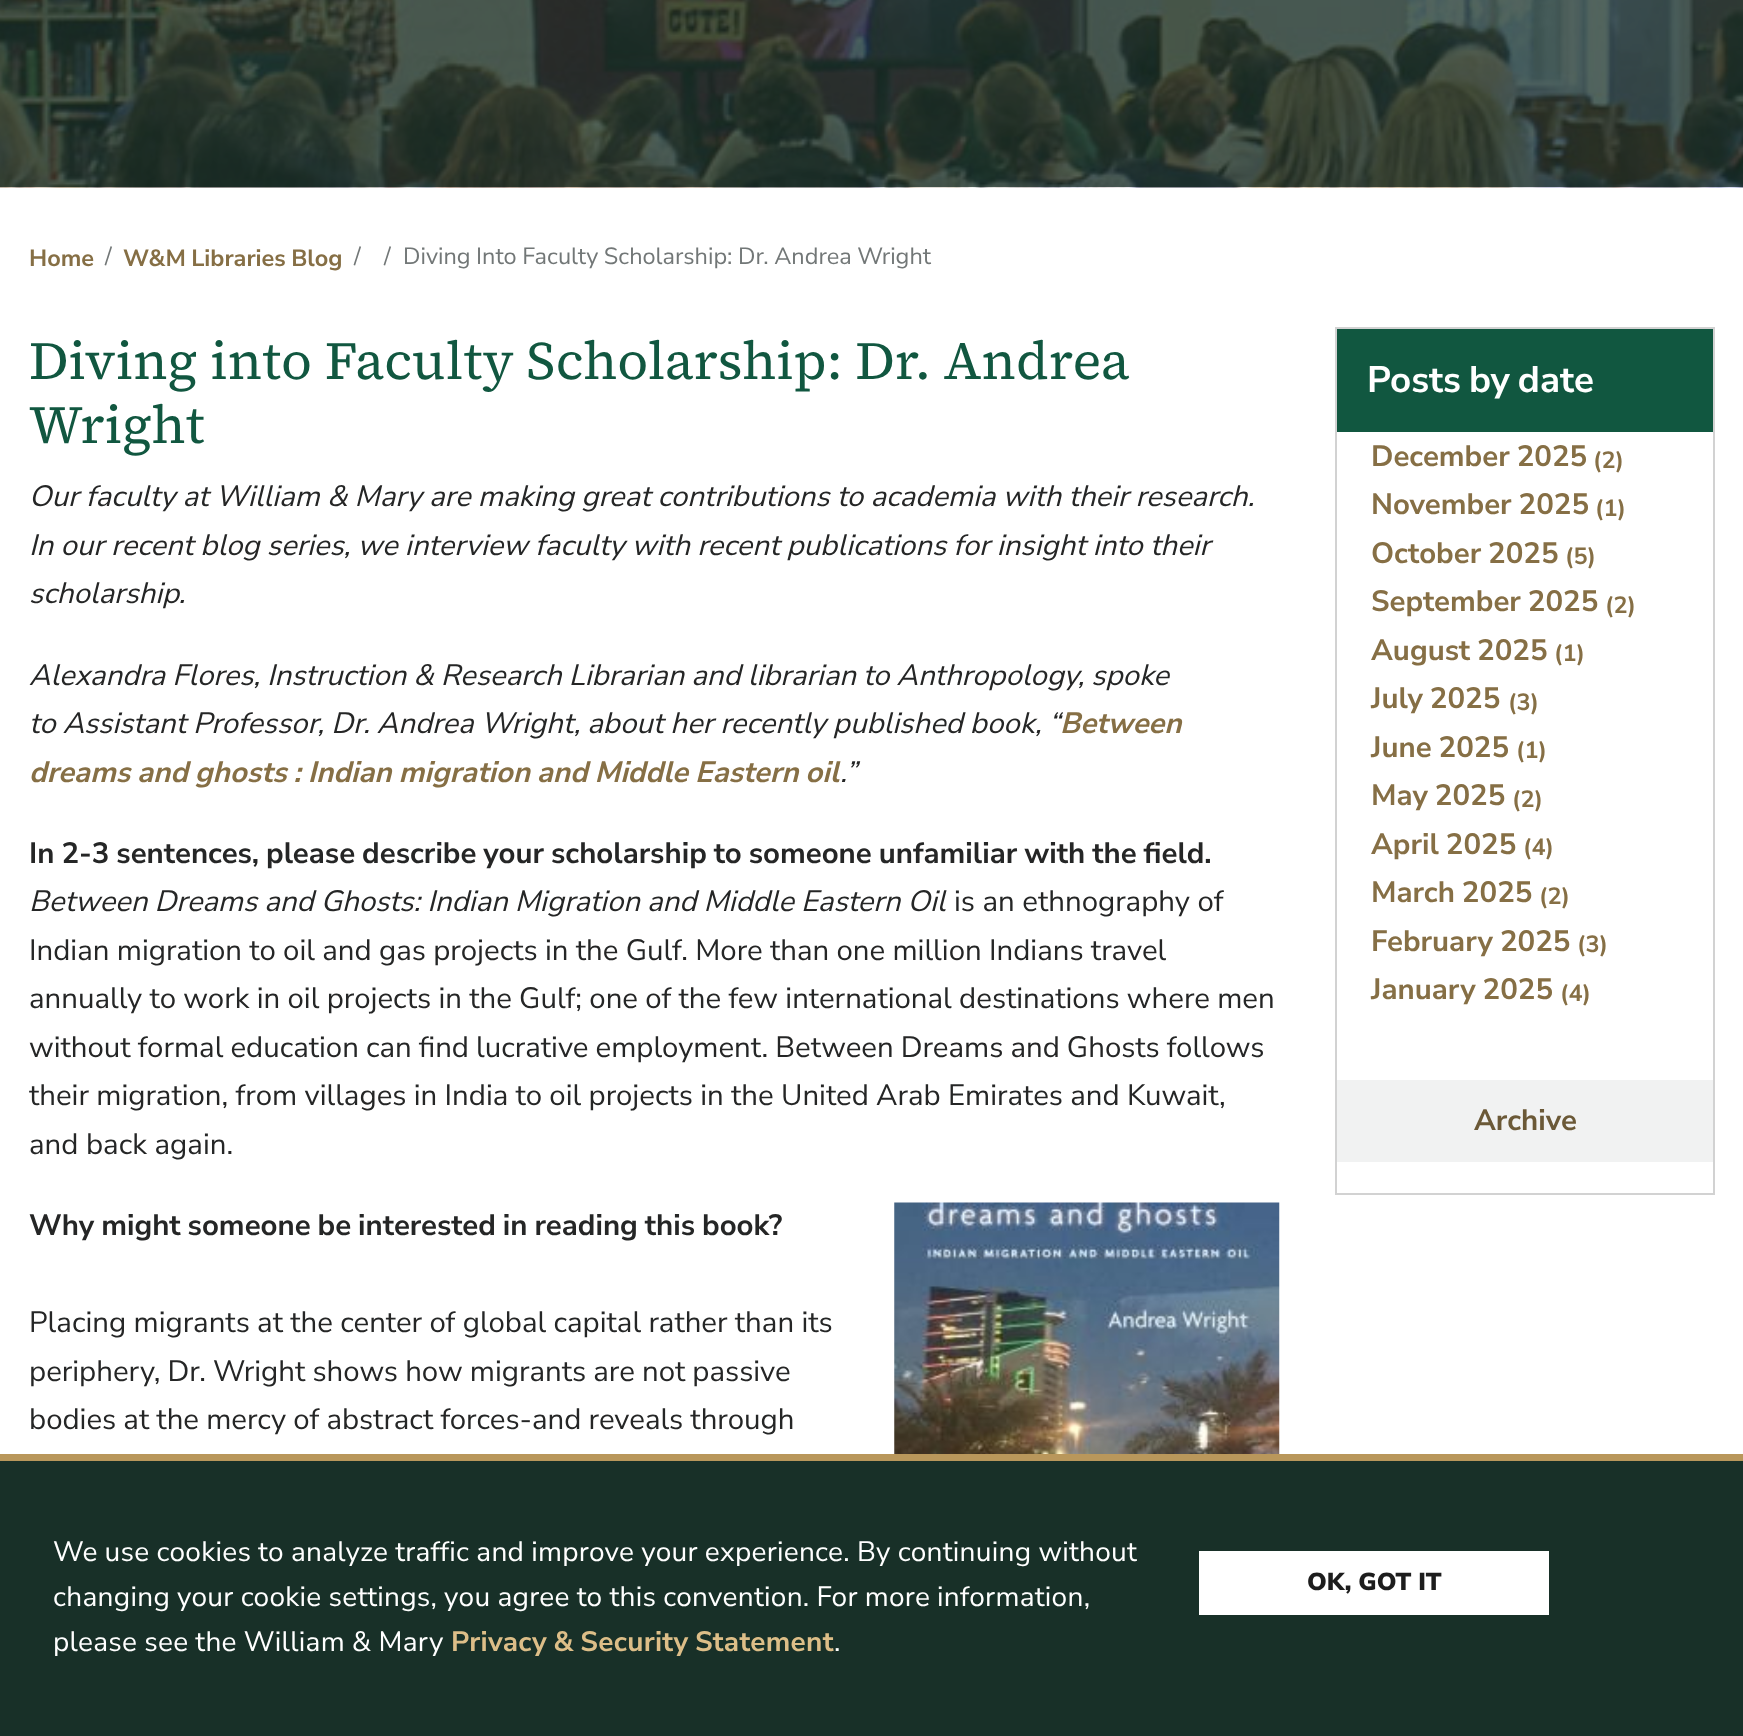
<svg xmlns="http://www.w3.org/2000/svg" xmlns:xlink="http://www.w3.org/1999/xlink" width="1743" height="1736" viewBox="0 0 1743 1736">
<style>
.cls-1{font:bold 23.5px Nunito Sans;fill:#866f45}
.cls-2{font:23.5px Nunito Sans;fill:#727777}
.cls-3{font:53.5px 'Source Serif 4';fill:#115740}
.cls-4{font:italic 29.4px Nunito Sans;fill:#252626}
.cls-5{font:italic bold 29.4px Nunito Sans;fill:#866f45}
.cls-6{font:bold 29.4px Nunito Sans;fill:#252626}
.cls-7{font:29.4px Nunito Sans;fill:#252626}
.cls-8{font:bold 36.75px Nunito Sans;fill:#ffffff}
.cls-9{font:bold 29.4px Nunito Sans;fill:#866f45}
.cls-10{font:bold 29.4px Nunito Sans;fill:#6b5937}
.cls-11{font:28px Nunito Sans;letter-spacing:0.28px;fill:#ffffff}
.cls-12{font:bold 28px Nunito Sans;letter-spacing:0.28px;fill:#ddbe88}
.cls-13{font:900 24.5px Nunito Sans;fill:#1d1d1d}
</style>
<rect width="100%" height="100%" fill="#ffffff"/>
<image xlink:href="image0.png" x="0" y="0" width="1743" height="188"/>
<image xlink:href="image1.png" x="894" y="1202" width="386" height="252"/>
<rect fill="none" stroke="#d2d2d2" stroke-width="2" x="1336" y="328" width="378" height="866"/>
<rect fill="#115740" x="1337" y="329" width="376" height="103"/>
<rect fill="#f1f2f2" x="1337" y="1080" width="376" height="82"/>
<rect fill="#183028" x="0" y="1461" width="1743" height="275"/>
<rect fill="#b9975b" x="0" y="1454" width="1743" height="7"/>
<rect fill="#ffffff" x="1199" y="1551" width="350" height="64"/>
<text class="cls-1" x="29" y="266">Home</text>
<text class="cls-2" x="105" y="264">/</text>
<text class="cls-1" x="123" y="266" word-spacing="-1">W&amp;M Libraries Blog</text>
<text class="cls-2" x="354" y="264">/</text>
<text class="cls-2" x="384" y="264">/</text>
<text class="cls-2" x="403" y="264" word-spacing="-0.5">Diving Into Faculty Scholarship: Dr. Andrea Wright</text>
<text class="cls-3"><tspan x="29" y="379">Diving into Faculty Scholarship: Dr. Andrea</tspan><tspan x="29" y="443">Wright</tspan></text>
<text class="cls-4"><tspan x="29" y="506" word-spacing="-0.3">Our faculty at William &amp; Mary are making great contributions to academia with their research.</tspan><tspan x="29" y="555" word-spacing="-0.3">In our recent blog series, we interview faculty with recent publications for insight into their</tspan><tspan x="29" y="603">scholarship.</tspan></text>
<text class="cls-4"><tspan x="29" y="685" word-spacing="-0.5">Alexandra Flores, Instruction &amp; Research Librarian and librarian to Anthropology, spoke</tspan><tspan x="29" y="733" word-spacing="-0.4">to Assistant Professor, Dr. Andrea Wright, about her recently published book, “</tspan></text>
<text class="cls-5" x="1060" y="733">Between</text>
<text class="cls-5" x="29" y="782" word-spacing="-1">dreams and ghosts : Indian migration and Middle Eastern oil</text>
<text class="cls-4" x="840" y="782">.”</text>
<text class="cls-6" x="29" y="863" word-spacing="-1">In 2-3 sentences, please describe your scholarship to someone unfamiliar with the field.</text>
<text class="cls-4" x="29" y="911" word-spacing="-0.5">Between Dreams and Ghosts: Indian Migration and Middle Eastern Oil</text>
<text class="cls-7" x="954" y="911">is an ethnography of</text>
<text class="cls-7"><tspan x="29" y="960" word-spacing="-0.25">Indian migration to oil and gas projects in the Gulf. More than one million Indians travel</tspan><tspan x="29" y="1008" word-spacing="-0.25">annually to work in oil projects in the Gulf; one of the few international destinations where men</tspan><tspan x="29" y="1057" word-spacing="-0.5">without formal education can find lucrative employment. Between Dreams and Ghosts follows</tspan><tspan x="29" y="1105" word-spacing="-0.25">their migration, from villages in India to oil projects in the United Arab Emirates and Kuwait,</tspan><tspan x="29" y="1154">and back again.</tspan></text>
<text class="cls-6" x="29" y="1235" word-spacing="-1">Why might someone be interested in reading this book?</text>
<text class="cls-7"><tspan x="29" y="1332" word-spacing="-0.25">Placing migrants at the center of global capital rather than its</tspan><tspan x="29" y="1381" word-spacing="-0.4">periphery, Dr. Wright shows how migrants are not passive</tspan><tspan x="29" y="1429" word-spacing="-0.4">bodies at the mercy of abstract forces-and reveals through</tspan></text>
<text class="cls-8" x="1367" y="392" word-spacing="-2">Posts by date</text>
<text class="cls-9" x="1371" y="466" word-spacing="-1">December 2025</text>
<text class="cls-1" x="1593" y="468">(2)</text>
<text class="cls-9" x="1371" y="514" word-spacing="-1">November 2025</text>
<text class="cls-1" x="1595" y="516">(1)</text>
<text class="cls-9" x="1371" y="563" word-spacing="-1">October 2025</text>
<text class="cls-1" x="1565" y="564">(5)</text>
<text class="cls-9" x="1371" y="611" word-spacing="-1">September 2025</text>
<text class="cls-1" x="1605" y="613">(2)</text>
<text class="cls-9" x="1371" y="660" word-spacing="-1">August 2025</text>
<text class="cls-1" x="1554" y="661">(1)</text>
<text class="cls-9" x="1371" y="708" word-spacing="-1">July 2025</text>
<text class="cls-1" x="1508" y="710">(3)</text>
<text class="cls-9" x="1371" y="757" word-spacing="-1">June 2025</text>
<text class="cls-1" x="1516" y="758">(1)</text>
<text class="cls-9" x="1371" y="805" word-spacing="-1">May 2025</text>
<text class="cls-1" x="1512" y="807">(2)</text>
<text class="cls-9" x="1371" y="854" word-spacing="-1">April 2025</text>
<text class="cls-1" x="1523" y="855">(4)</text>
<text class="cls-9" x="1371" y="902" word-spacing="-1">March 2025</text>
<text class="cls-1" x="1539" y="904">(2)</text>
<text class="cls-9" x="1371" y="951" word-spacing="-1">February 2025</text>
<text class="cls-1" x="1577" y="952">(3)</text>
<text class="cls-9" x="1371" y="999" word-spacing="-1">January 2025</text>
<text class="cls-1" x="1560" y="1001">(4)</text>
<text class="cls-10" x="1474" y="1130">Archive</text>
<text class="cls-11"><tspan x="53" y="1561" word-spacing="-0.5">We use cookies to analyze traffic and improve your experience. By continuing without</tspan><tspan x="53" y="1606" word-spacing="-0.5">changing your cookie settings, you agree to this convention. For more information,</tspan><tspan x="53" y="1651" word-spacing="-0.5">please see the William &amp; Mary</tspan></text>
<text class="cls-12" x="451" y="1651" word-spacing="-1.5">Privacy &amp; Security Statement</text>
<text class="cls-11" x="834" y="1651">.</text>
<text class="cls-13" x="1307" y="1590">OK, GOT IT</text>
</svg>
